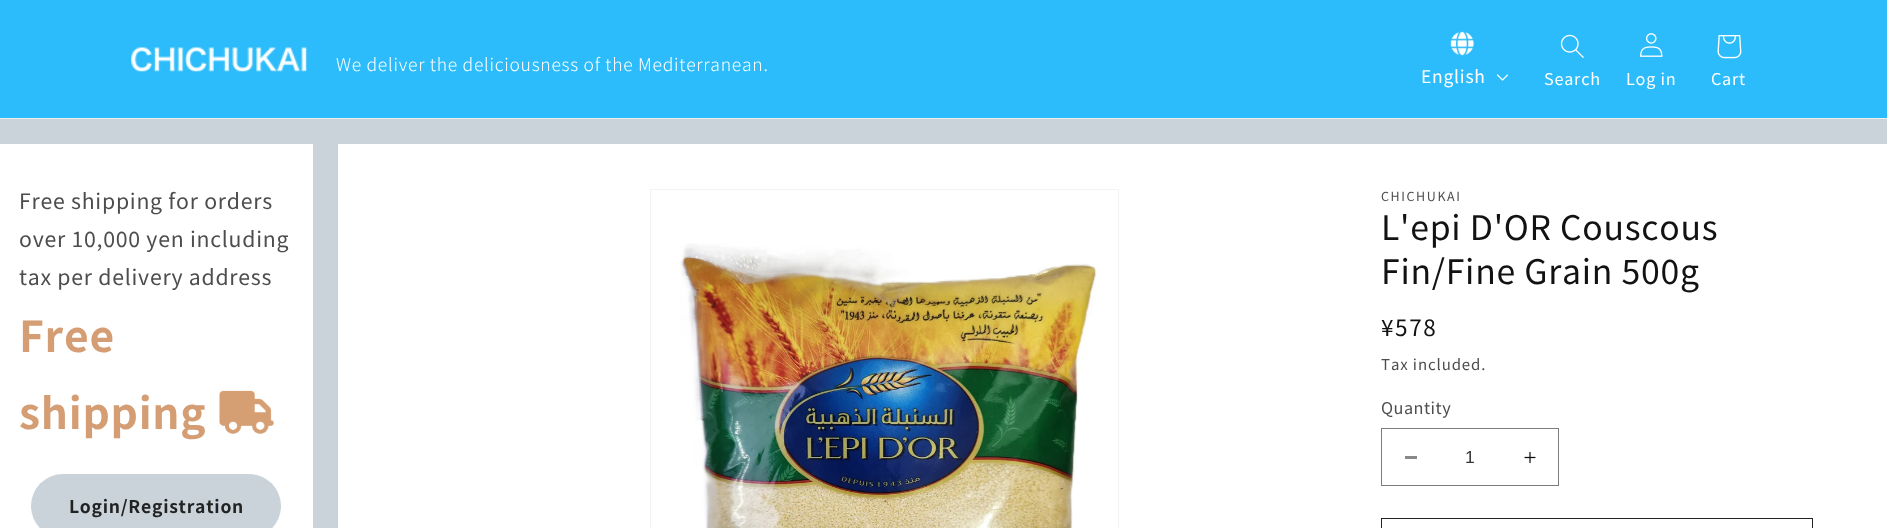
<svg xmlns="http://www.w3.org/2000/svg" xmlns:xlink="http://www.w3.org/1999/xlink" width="1887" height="528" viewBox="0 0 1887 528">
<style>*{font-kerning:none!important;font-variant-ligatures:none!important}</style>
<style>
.cls-1{font:300 17.5px Noto Sans JP;letter-spacing:0.75px;fill:#ffffff}
.cls-2{font:17.5px Noto Sans JP;letter-spacing:0.75px;fill:#ffffff}
.cls-3{font:16.25px Noto Sans JP;letter-spacing:0.75px;fill:#ffffff}
.cls-4{font:21.25px Noto Sans JP;letter-spacing:0.75px;fill:#4d4d4d}
.cls-5{font:bold 42.5px Noto Sans JP;letter-spacing:0.75px;fill:#d49d73}
.cls-6{font:bold 17.5px Noto Sans JP;letter-spacing:0.75px;fill:#222222}
.cls-7{font:12.5px Noto Sans JP;letter-spacing:1.6px;fill:#4d4d4d}
.cls-8{font:33.75px Noto Sans JP;letter-spacing:0.75px;fill:#121212}
.cls-9{font:22.5px Noto Sans JP;letter-spacing:1.6px;fill:#121212}
.cls-10{font:15px Noto Sans JP;letter-spacing:0.9px;fill:#4d4d4d}
.cls-11{font:16.25px Noto Sans JP;letter-spacing:0.5px;fill:#4d4d4d}
.cls-12{font:17.5px Liberation Sans;fill:#363636}
</style>
<rect width="100%" height="100%" fill="#cad3d9"/>
<rect fill="#2cbcfb" x="0" y="0" width="1887" height="118"/>
<rect fill="#eeeeee" x="0" y="118" width="1887" height="1"/>
<image xlink:href="image0.png" x="131" y="47" width="176" height="25"/>
<image xlink:href="image1.png" x="1450" y="31" width="24" height="25"/>
<image xlink:href="image2.png" x="1497" y="74" width="11" height="7"/>
<image xlink:href="image3.png" x="1560" y="34" width="24" height="24"/>
<image xlink:href="image4.png" x="1640" y="33" width="23" height="24"/>
<image xlink:href="image5.png" x="1717" y="35" width="25" height="24"/>
<rect fill="#ffffff" x="0" y="144" width="313" height="384"/>
<image xlink:href="image6.png" x="219" y="390" width="55" height="44"/>
<rect fill="#cad3d9" x="31" y="474" width="250" height="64" rx="32"/>
<rect fill="#ffffff" x="338" y="144" width="1549" height="384"/>
<rect fill="none" stroke="#f3f3f3" x="650.5" y="189.5" width="468" height="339"/>
<image xlink:href="image7.png" x="680" y="243" width="417" height="285"/>
<rect fill="#898989" x="1405" y="456" width="12" height="3"/>
<image xlink:href="image8.png" x="1524" y="451" width="12" height="13"/>
<rect fill="none" stroke="#7d7d7d" x="1381.5" y="428.5" width="177" height="57"/>
<rect fill="none" stroke="#222222" x="1381.5" y="518.5" width="431" height="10"/>
<text class="cls-1" x="336" y="71">We deliver the deliciousness of the Mediterranean.</text>
<text class="cls-2" x="1421" y="83">English</text>
<text class="cls-3" x="1544" y="85">Search</text>
<text class="cls-3" x="1626" y="85">Log in</text>
<text class="cls-3" x="1711" y="85">Cart</text>
<text class="cls-4"><tspan x="19" y="209">Free shipping for orders</tspan><tspan x="19" y="247">over 10,000 yen including</tspan><tspan x="19" y="285">tax per delivery address</tspan></text>
<text class="cls-5"><tspan x="19" y="352">Free</tspan><tspan x="19" y="429">shipping</tspan></text>
<text class="cls-6" x="69" y="513">Login/Registration</text>
<text class="cls-7" x="1381" y="201">CHICHUKAI</text>
<text class="cls-8"><tspan x="1381" y="240">L'epi D'OR Couscous</tspan><tspan x="1381" y="284">Fin/Fine Grain 500g</tspan></text>
<text class="cls-9" x="1381" y="336">¥578</text>
<text class="cls-10" x="1381" y="370">Tax included.</text>
<text class="cls-11" x="1381" y="414">Quantity</text>
<text class="cls-12" x="1465" y="463">1</text>
</svg>
